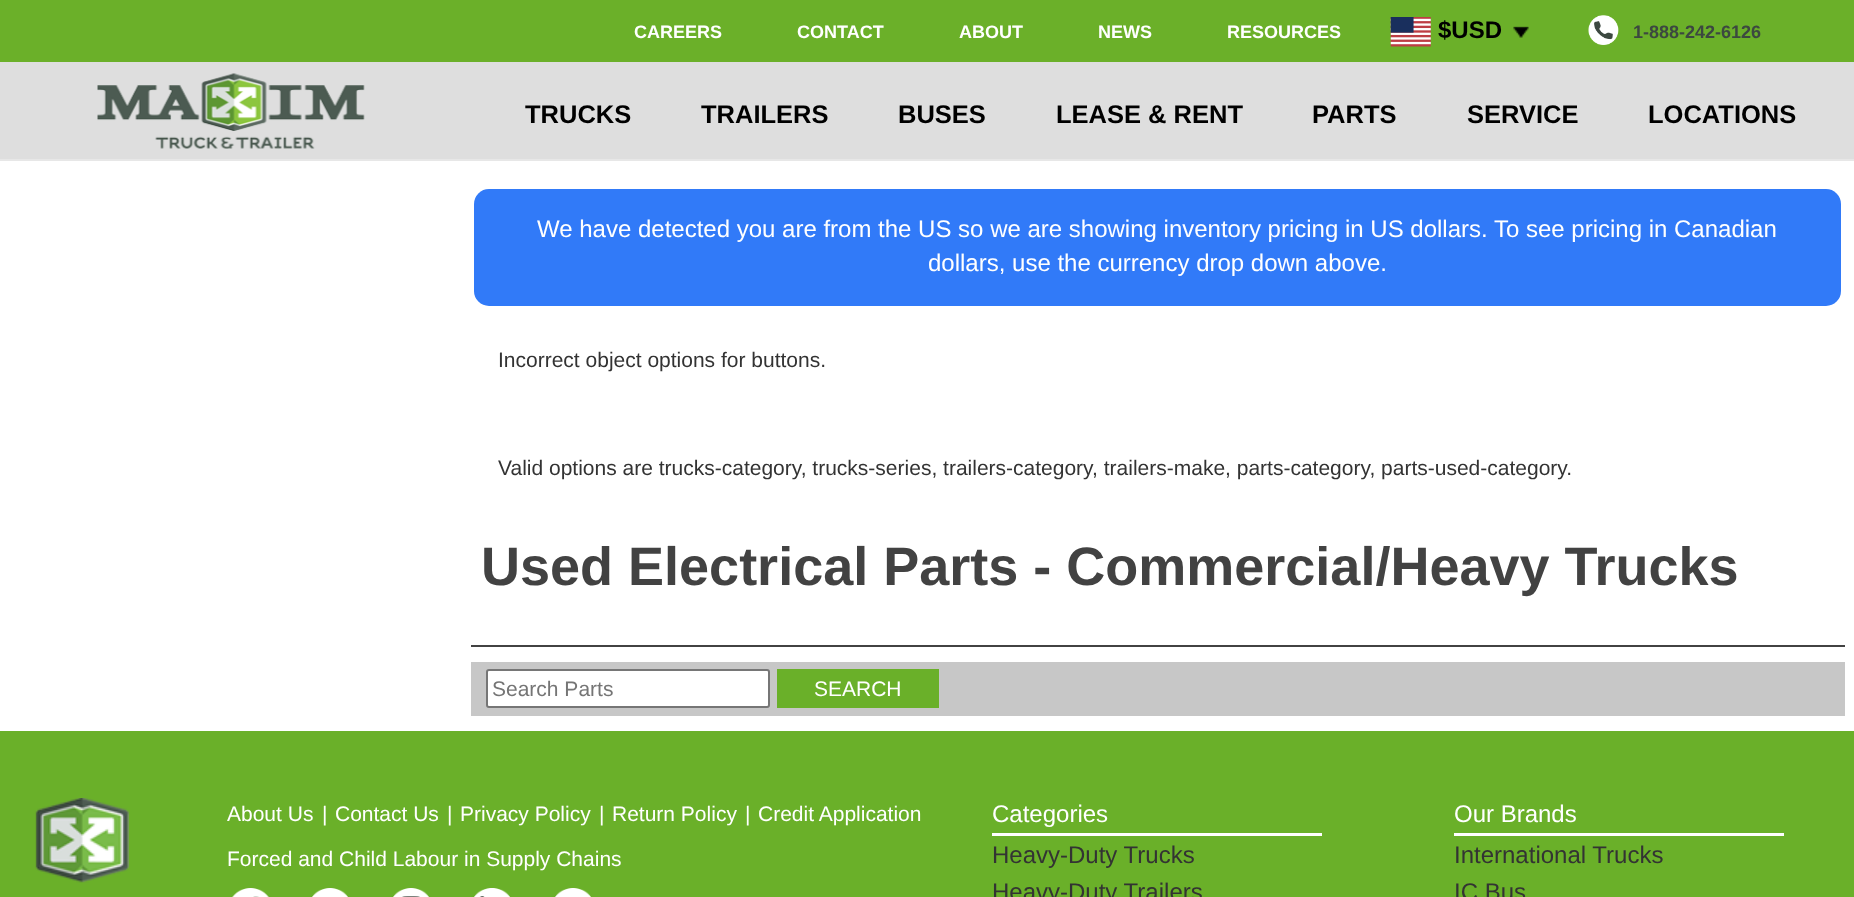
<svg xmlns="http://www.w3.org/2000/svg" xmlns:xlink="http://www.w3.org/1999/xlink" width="1854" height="897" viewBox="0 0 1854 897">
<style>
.cls-1{font:bold 18px Liberation Sans;fill:#ffffff}
.cls-2{font:bold 24px Liberation Sans;fill:#000000}
.cls-3{font:bold 18px Liberation Sans;fill:#3c4840}
.cls-4{font:bold 25.5px Liberation Sans;fill:#000000}
.cls-5{font:24px Liberation Sans;fill:#ffffff}
.cls-6{font:21px Liberation Sans;fill:#333333}
.cls-7{font:bold 54px Liberation Sans;fill:#424242}
.cls-8{font:21px Liberation Sans;fill:#757575}
.cls-9{font:21px Liberation Sans;fill:#ffffff}
.cls-10{font:24px Liberation Sans;fill:#333333}
</style>
<rect width="100%" height="100%" fill="#ffffff"/>
<rect fill="#e7e7e7" x="0" y="159" width="1854" height="2"/>
<rect fill="#6bb029" x="0" y="0" width="1854" height="62"/>
<image xlink:href="image0.png" x="1390" y="17" width="41" height="30"/>
<image xlink:href="image1.png" x="1513" y="26" width="16" height="12"/>
<image xlink:href="image2.png" x="1588" y="15" width="31" height="30"/>
<rect fill="#dedede" x="0" y="62" width="1854" height="97"/>
<image xlink:href="image3.png" x="97" y="73" width="268" height="76"/>
<rect fill="#317af8" x="474" y="189" width="1367" height="117" rx="15"/>
<rect fill="#424242" x="471" y="645" width="1374" height="2"/>
<rect fill="#c7c7c7" x="471" y="662" width="1374" height="54"/>
<rect fill="#ffffff" stroke="#767676" stroke-width="2" x="487" y="670" width="282" height="37" rx="2"/>
<rect fill="#6ab029" x="777" y="669" width="162" height="39"/>
<rect fill="#6ab029" x="0" y="731" width="1854" height="166"/>
<image xlink:href="image4.png" x="35" y="798" width="94" height="85"/>
<image xlink:href="image5.png" x="232" y="888" width="37" height="9"/>
<image xlink:href="image6.png" x="312" y="888" width="36" height="9"/>
<image xlink:href="image7.png" x="393" y="888" width="36" height="9"/>
<image xlink:href="image8.png" x="474" y="888" width="36" height="9"/>
<image xlink:href="image9.png" x="555" y="888" width="36" height="9"/>
<rect fill="#ffffff" x="992" y="833" width="330" height="3"/>
<rect fill="#ffffff" x="1454" y="833" width="330" height="3"/>
<text class="cls-1" x="634" y="38">CAREERS</text>
<text class="cls-1" x="797" y="38">CONTACT</text>
<text class="cls-1" x="959" y="38">ABOUT</text>
<text class="cls-1" x="1098" y="38">NEWS</text>
<text class="cls-1" x="1227" y="38">RESOURCES</text>
<text class="cls-2" x="1438" y="38">$USD</text>
<text class="cls-3" x="1633" y="38">1-888-242-6126</text>
<text class="cls-4" x="525" y="123">TRUCKS</text>
<text class="cls-4" x="701" y="123">TRAILERS</text>
<text class="cls-4" x="898" y="123">BUSES</text>
<text class="cls-4" x="1056" y="123">LEASE &amp; RENT</text>
<text class="cls-4" x="1312" y="123">PARTS</text>
<text class="cls-4" x="1467" y="123">SERVICE</text>
<text class="cls-4" x="1648" y="123">LOCATIONS</text>
<text class="cls-5" x="537" y="237">We have detected you are from the US so we are showing inventory pricing in US dollars. To see pricing in Canadian</text>
<text class="cls-5" x="928" y="271">dollars, use the currency drop down above.</text>
<text class="cls-6" x="498" y="367">Incorrect object options for buttons.</text>
<text class="cls-6" x="498" y="475">Valid options are trucks-category, trucks-series, trailers-category, trailers-make, parts-category, parts-used-category.</text>
<text class="cls-7" x="481" y="585">Used Electrical Parts - Commercial/Heavy Trucks</text>
<text class="cls-8" x="492" y="696">Search Parts</text>
<text class="cls-9" x="814" y="696">SEARCH</text>
<text class="cls-9" x="227" y="821">About Us</text>
<text class="cls-9" x="322" y="821">|</text>
<text class="cls-9" x="335" y="821">Contact Us</text>
<text class="cls-9" x="447" y="821">|</text>
<text class="cls-9" x="460" y="821">Privacy Policy</text>
<text class="cls-9" x="599" y="821">|</text>
<text class="cls-9" x="612" y="821">Return Policy</text>
<text class="cls-9" x="745" y="821">|</text>
<text class="cls-9" x="758" y="821">Credit Application</text>
<text class="cls-9" x="227" y="866">Forced and Child Labour in Supply Chains</text>
<text class="cls-5" x="992" y="822">Categories</text>
<text class="cls-10"><tspan x="992" y="863">Heavy-Duty Trucks</tspan><tspan x="992" y="900">Heavy-Duty Trailers</tspan></text>
<text class="cls-5" x="1454" y="822">Our Brands</text>
<text class="cls-10"><tspan x="1454" y="863">International Trucks</tspan><tspan x="1454" y="900">IC Bus</tspan></text>
</svg>
